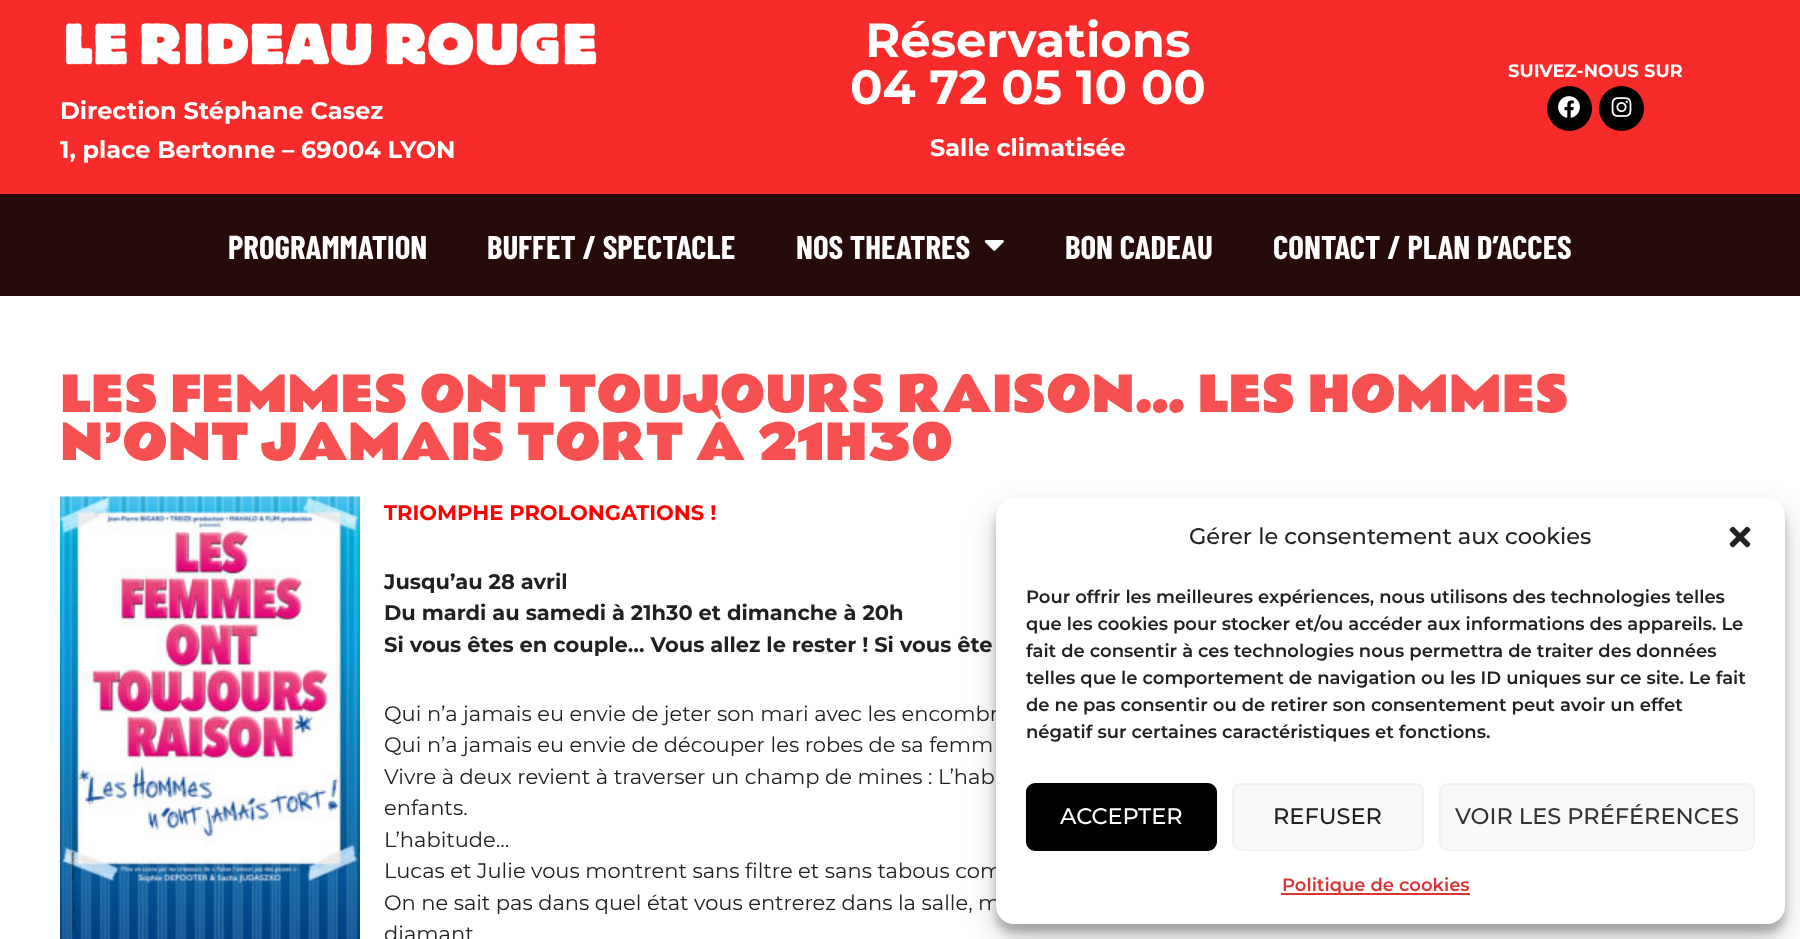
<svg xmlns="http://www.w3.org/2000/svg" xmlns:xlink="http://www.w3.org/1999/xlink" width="1800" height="939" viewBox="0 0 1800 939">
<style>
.cls-1{font:bold 48px Montserrat;fill:#ffffff}
.cls-2{font:bold 24px Montserrat;fill:#ffffff}
.cls-3{font:bold 18px Montserrat;fill:#ffffff}
.cls-4{font:bold 33px Barlow Condensed;fill:#ffffff}
.cls-5{font:48px Rammetto One;fill:#f65050}
.cls-6{font:bold 21px Montserrat;fill:#ff0000}
.cls-7{font:bold 21px Montserrat;fill:#212121}
.cls-8{font:21px Montserrat;fill:#212121}
.cls-9{font:500 22.5px Montserrat;fill:#212121}
.cls-10{font:600 18px Montserrat;fill:#212121}
.cls-11{font:500 22.5px Montserrat;fill:#ffffff}
.cls-12{font:500 22.5px Montserrat;fill:#333333}
.cls-13{font:600 18px Montserrat;fill:#dd3333}
</style>
<rect width="100%" height="100%" fill="#ffffff"/>
<rect fill="#f82b2b" x="0" y="0" width="1800" height="194"/>
<circle fill="#000000" cx="1569.5" cy="108.5" r="22.5"/>
<image xlink:href="image0.png" x="1558" y="96" width="22" height="22"/>
<circle fill="#000000" cx="1621.5" cy="108.5" r="22.5"/>
<image xlink:href="image1.png" x="1611" y="97" width="21" height="20"/>
<image xlink:href="image2.png" x="65" y="22" width="532" height="44"/>
<rect fill="#270b0b" x="0" y="194" width="1800" height="102"/>
<image xlink:href="image3.png" x="984" y="240" width="20" height="11"/>
<image xlink:href="image4.png" x="60" y="496" width="300" height="443"/>
<rect fill="#000000" fill-opacity="0.23" filter="blur(4.5px)" x="996" y="507" width="789" height="426" rx="18"/>
<rect fill="#000000" fill-opacity="0.19" filter="blur(15px)" x="996" y="513" width="789" height="426" rx="18"/>
<text class="cls-1" x="865" y="57">Réservations</text>
<text class="cls-1" x="850" y="104">04 72 05 10 00</text>
<text class="cls-2" x="930" y="156">Salle climatisée</text>
<text class="cls-3" x="1508" y="77">SUIVEZ-NOUS SUR</text>
<text class="cls-2"><tspan x="60" y="119">Direction Stéphane Casez</tspan><tspan x="60" y="158">1, place Bertonne – 69004 LYON</tspan></text>
<text class="cls-4" x="228" y="259">PROGRAMMATION</text>
<text class="cls-4" x="487" y="259">BUFFET / SPECTACLE</text>
<text class="cls-4" x="796" y="259">NOS THEATRES</text>
<text class="cls-4" x="1065" y="259">BON CADEAU</text>
<text class="cls-4" x="1273" y="259">CONTACT / PLAN D’ACCES</text>
<text class="cls-5"><tspan x="60" y="412">LES FEMMES ONT TOUJOURS RAISON… LES HOMMES</tspan><tspan x="60" y="460">N’ONT JAMAIS TORT À 21H30</tspan></text>
<text class="cls-6" x="384" y="520">TRIOMPHE PROLONGATIONS !</text>
<text class="cls-7"><tspan x="384" y="589">Jusqu’au 28 avril</tspan><tspan x="384" y="620">Du mardi au samedi à 21h30 et dimanche à 20h</tspan><tspan x="384" y="652">Si vous êtes en couple… Vous allez le rester ! Si vous ête</tspan></text>
<text class="cls-8"><tspan x="384" y="721">Qui n’a jamais eu envie de jeter son mari avec les encombr</tspan><tspan x="384" y="752">Qui n’a jamais eu envie de découper les robes de sa femm</tspan><tspan x="384" y="784">Vivre à deux revient à traverser un champ de mines : L’hab</tspan><tspan x="384" y="815">enfants.</tspan><tspan x="384" y="847">L’habitude…</tspan><tspan x="384" y="878">Lucas et Julie vous montrent sans filtre et sans tabous com</tspan><tspan x="384" y="910">On ne sait pas dans quel état vous entrerez dans la salle, m</tspan><tspan x="384" y="941">diamant</tspan></text>
<rect fill="#ffffff" x="996" y="498" width="789" height="426" rx="18"/>
<text class="cls-9" x="1189" y="544">Gérer le consentement aux cookies</text>
<image xlink:href="image5.png" x="1729" y="526" width="22" height="22"/>
<text class="cls-10"><tspan x="1026" y="603">Pour offrir les meilleures expériences, nous utilisons des technologies telles</tspan><tspan x="1026" y="630">que les cookies pour stocker et/ou accéder aux informations des appareils. Le</tspan><tspan x="1026" y="657">fait de consentir à ces technologies nous permettra de traiter des données</tspan><tspan x="1026" y="684">telles que le comportement de navigation ou les ID uniques sur ce site. Le fait</tspan><tspan x="1026" y="711">de ne pas consentir ou de retirer son consentement peut avoir un effet</tspan><tspan x="1026" y="738">négatif sur certaines caractéristiques et fonctions.</tspan></text>
<rect fill="#000000" stroke="#000000" stroke-width="2" x="1027" y="784" width="189" height="66" rx="8"/>
<text class="cls-11" x="1060" y="824">ACCEPTER</text>
<rect fill="#f9f9f9" stroke="#f2f2f2" stroke-width="2" x="1233" y="784" width="190" height="66" rx="8"/>
<text class="cls-9" x="1273" y="824">REFUSER</text>
<rect fill="#f9f9f9" stroke="#f2f2f2" stroke-width="2" x="1440" y="784" width="314" height="66" rx="8"/>
<text class="cls-12" x="1455" y="824">VOIR LES PRÉFÉRENCES</text>
<rect fill="#dd3333" x="1281" y="893" width="189" height="2"/>
<text class="cls-13" x="1282" y="891">Politique de cookies</text>
</svg>
